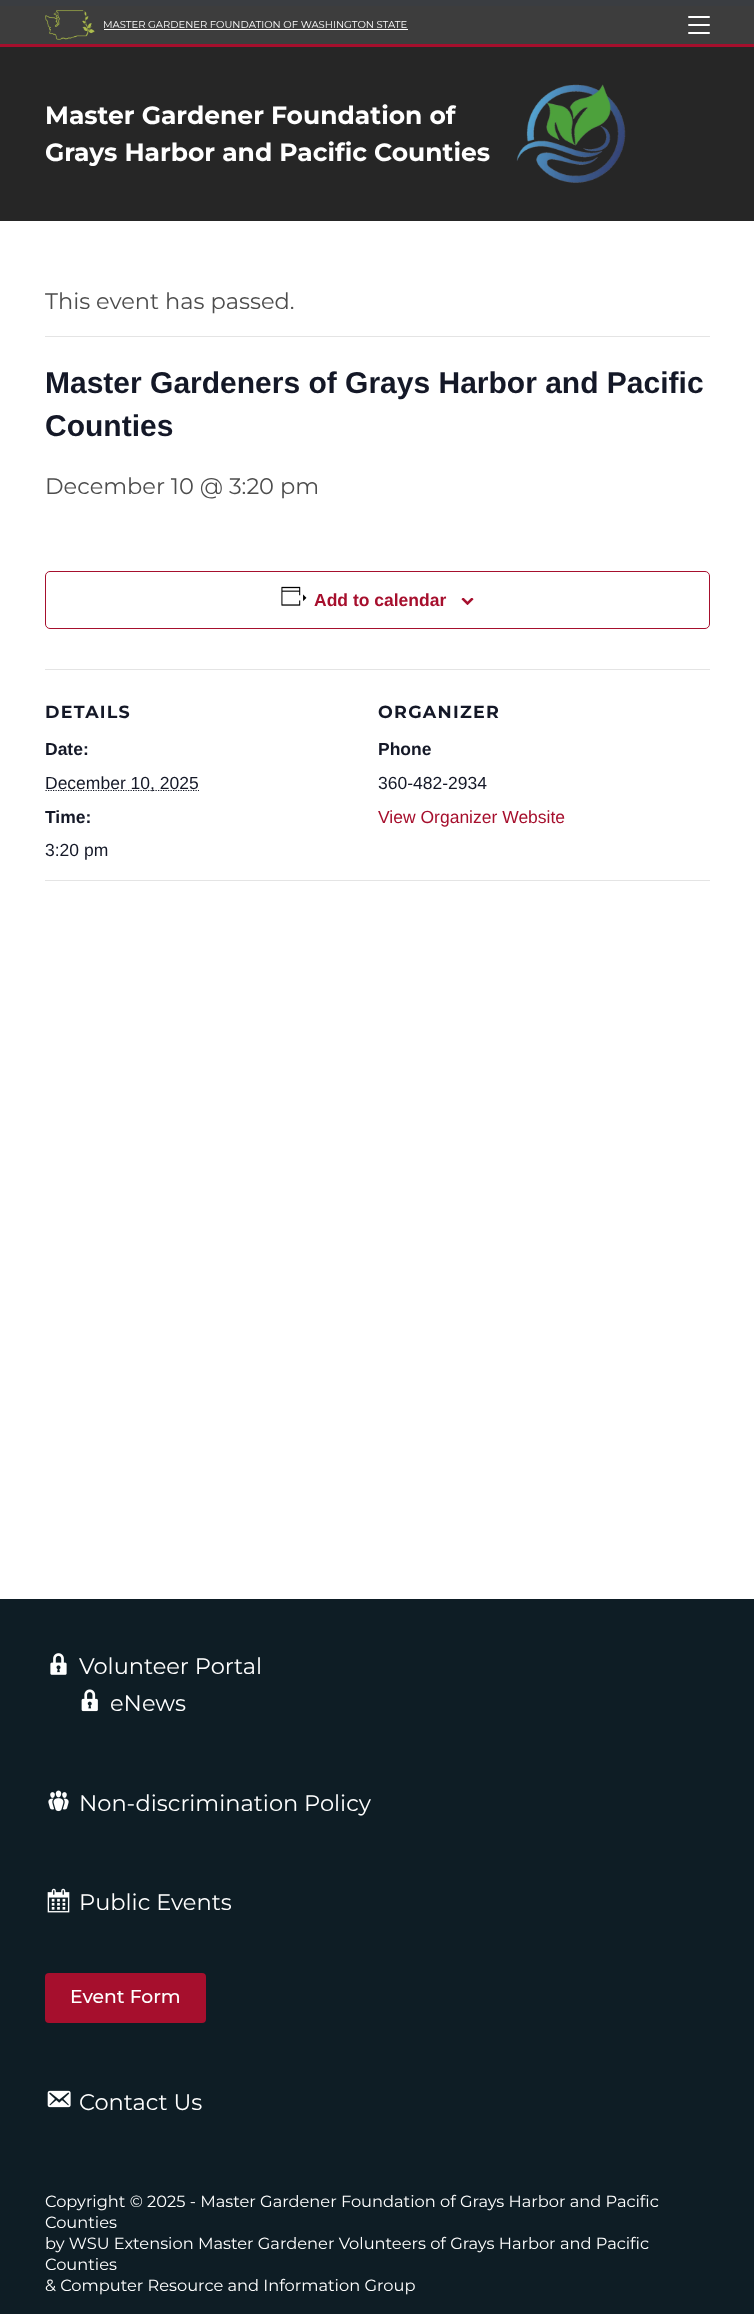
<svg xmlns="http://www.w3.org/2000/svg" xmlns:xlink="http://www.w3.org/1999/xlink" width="754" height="2314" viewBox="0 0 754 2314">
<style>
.cls-1{font:10px Montserrat;fill:#ffffff}
.cls-2{font:bold 25px Montserrat;fill:#ffffff}
.cls-3{font:22.5px Montserrat;fill:#4d4d4d}
.cls-4{font:bold 30px Liberation Sans;fill:#141827}
.cls-5{font:bold 17.5px Liberation Sans;fill:#a60f2d}
.cls-6{font:bold 17.5px Montserrat;letter-spacing:1.25px;fill:#141827}
.cls-7{font:bold 17.5px Liberation Sans;fill:#141827}
.cls-8{font:17.5px Liberation Sans;fill:#141827}
.cls-9{font:17.5px Liberation Sans;fill:#a60f2d}
.cls-10{font:22.5px Montserrat;fill:#ffffff}
.cls-11{font:500 18.75px Montserrat;fill:#ffffff}
.cls-12{font:16.25px Montserrat;fill:#ffffff}
</style>
<rect width="100%" height="100%" fill="#ffffff"/>
<rect fill="#3d3d3d" x="0" y="6" width="754" height="38"/>
<rect fill="#3a3d41" x="0" y="0" width="754" height="6"/>
<rect fill="#a60f2d" x="0" y="44" width="754" height="3"/>
<image xlink:href="image0.png" x="45" y="10" width="50" height="30"/>
<rect fill="#ffffff" x="104" y="29" width="304" height="1"/>
<rect fill="#ffffff" x="688" y="16" width="22" height="2" rx="1"/>
<rect fill="#ffffff" x="688" y="24" width="22" height="2" rx="1"/>
<rect fill="#ffffff" x="688" y="32" width="22" height="2" rx="1"/>
<rect fill="#262626" x="0" y="47" width="754" height="174"/>
<image xlink:href="image1.png" x="516" y="84" width="110" height="99"/>
<rect fill="#e4e4e4" x="45" y="336" width="665" height="1"/>
<rect fill="none" stroke="#a60f2d" x="45.5" y="571.5" width="664" height="57" rx="4.5"/>
<image xlink:href="image2.png" x="281" y="586" width="26" height="20"/>
<image xlink:href="image3.png" x="461" y="598" width="13" height="7"/>
<rect fill="#e4e4e4" x="45" y="669" width="665" height="1"/>
<path fill="none" stroke="#141827" stroke-width="1.2" stroke-dasharray="1.25 1.25" d="M45.5 790.5H199"/>
<rect fill="#e4e4e4" x="45" y="880" width="665" height="1"/>
<rect fill="#0e1d25" x="0" y="1599" width="754" height="715"/>
<image xlink:href="image4.png" x="50" y="1653" width="17" height="22"/>
<image xlink:href="image5.png" x="81" y="1689" width="17" height="23"/>
<image xlink:href="image6.png" x="48" y="1790" width="21" height="22"/>
<image xlink:href="image7.png" x="47" y="1888" width="23" height="25"/>
<rect fill="#a60f2d" x="45" y="1973" width="161" height="50" rx="4"/>
<image xlink:href="image8.png" x="47" y="2090" width="24" height="18"/>
<text class="cls-1" x="103" y="28">MASTER GARDENER FOUNDATION OF WASHINGTON STATE</text>
<text class="cls-2"><tspan x="45" y="124">Master Gardener Foundation of</tspan><tspan x="45" y="161">Grays Harbor and Pacific Counties</tspan></text>
<text class="cls-3" x="45" y="309">This event has passed.</text>
<text class="cls-4"><tspan x="45" y="393">Master Gardeners of Grays Harbor and Pacific</tspan><tspan x="45" y="436">Counties</tspan></text>
<text class="cls-3" x="45" y="494">December 10 @ 3:20 pm</text>
<text class="cls-5" x="314" y="606">Add to calendar</text>
<text class="cls-6" x="45" y="718">DETAILS</text>
<text class="cls-7" x="45" y="755">Date:</text>
<text class="cls-8" x="45" y="789">December 10, 2025</text>
<text class="cls-7" x="45" y="823">Time:</text>
<text class="cls-8" x="45" y="856">3:20 pm</text>
<text class="cls-6" x="378" y="718">ORGANIZER</text>
<text class="cls-7" x="378" y="755">Phone</text>
<text class="cls-8" x="378" y="789">360-482-2934</text>
<text class="cls-9" x="378" y="823">View Organizer Website</text>
<text class="cls-10" x="79" y="1674">Volunteer Portal</text>
<text class="cls-10" x="110" y="1711">eNews</text>
<text class="cls-10" x="79" y="1811">Non-discrimination Policy</text>
<text class="cls-10" x="79" y="1910">Public Events</text>
<text class="cls-11" x="70" y="2003">Event Form</text>
<text class="cls-10" x="79" y="2110">Contact Us</text>
<text class="cls-12"><tspan x="45" y="2207">Copyright © 2025 - Master Gardener Foundation of Grays Harbor and Pacific</tspan><tspan x="45" y="2228">Counties</tspan><tspan x="45" y="2249">by WSU Extension Master Gardener Volunteers of Grays Harbor and Pacific</tspan><tspan x="45" y="2270">Counties</tspan><tspan x="45" y="2291">&amp; Computer Resource and Information Group</tspan></text>
</svg>
